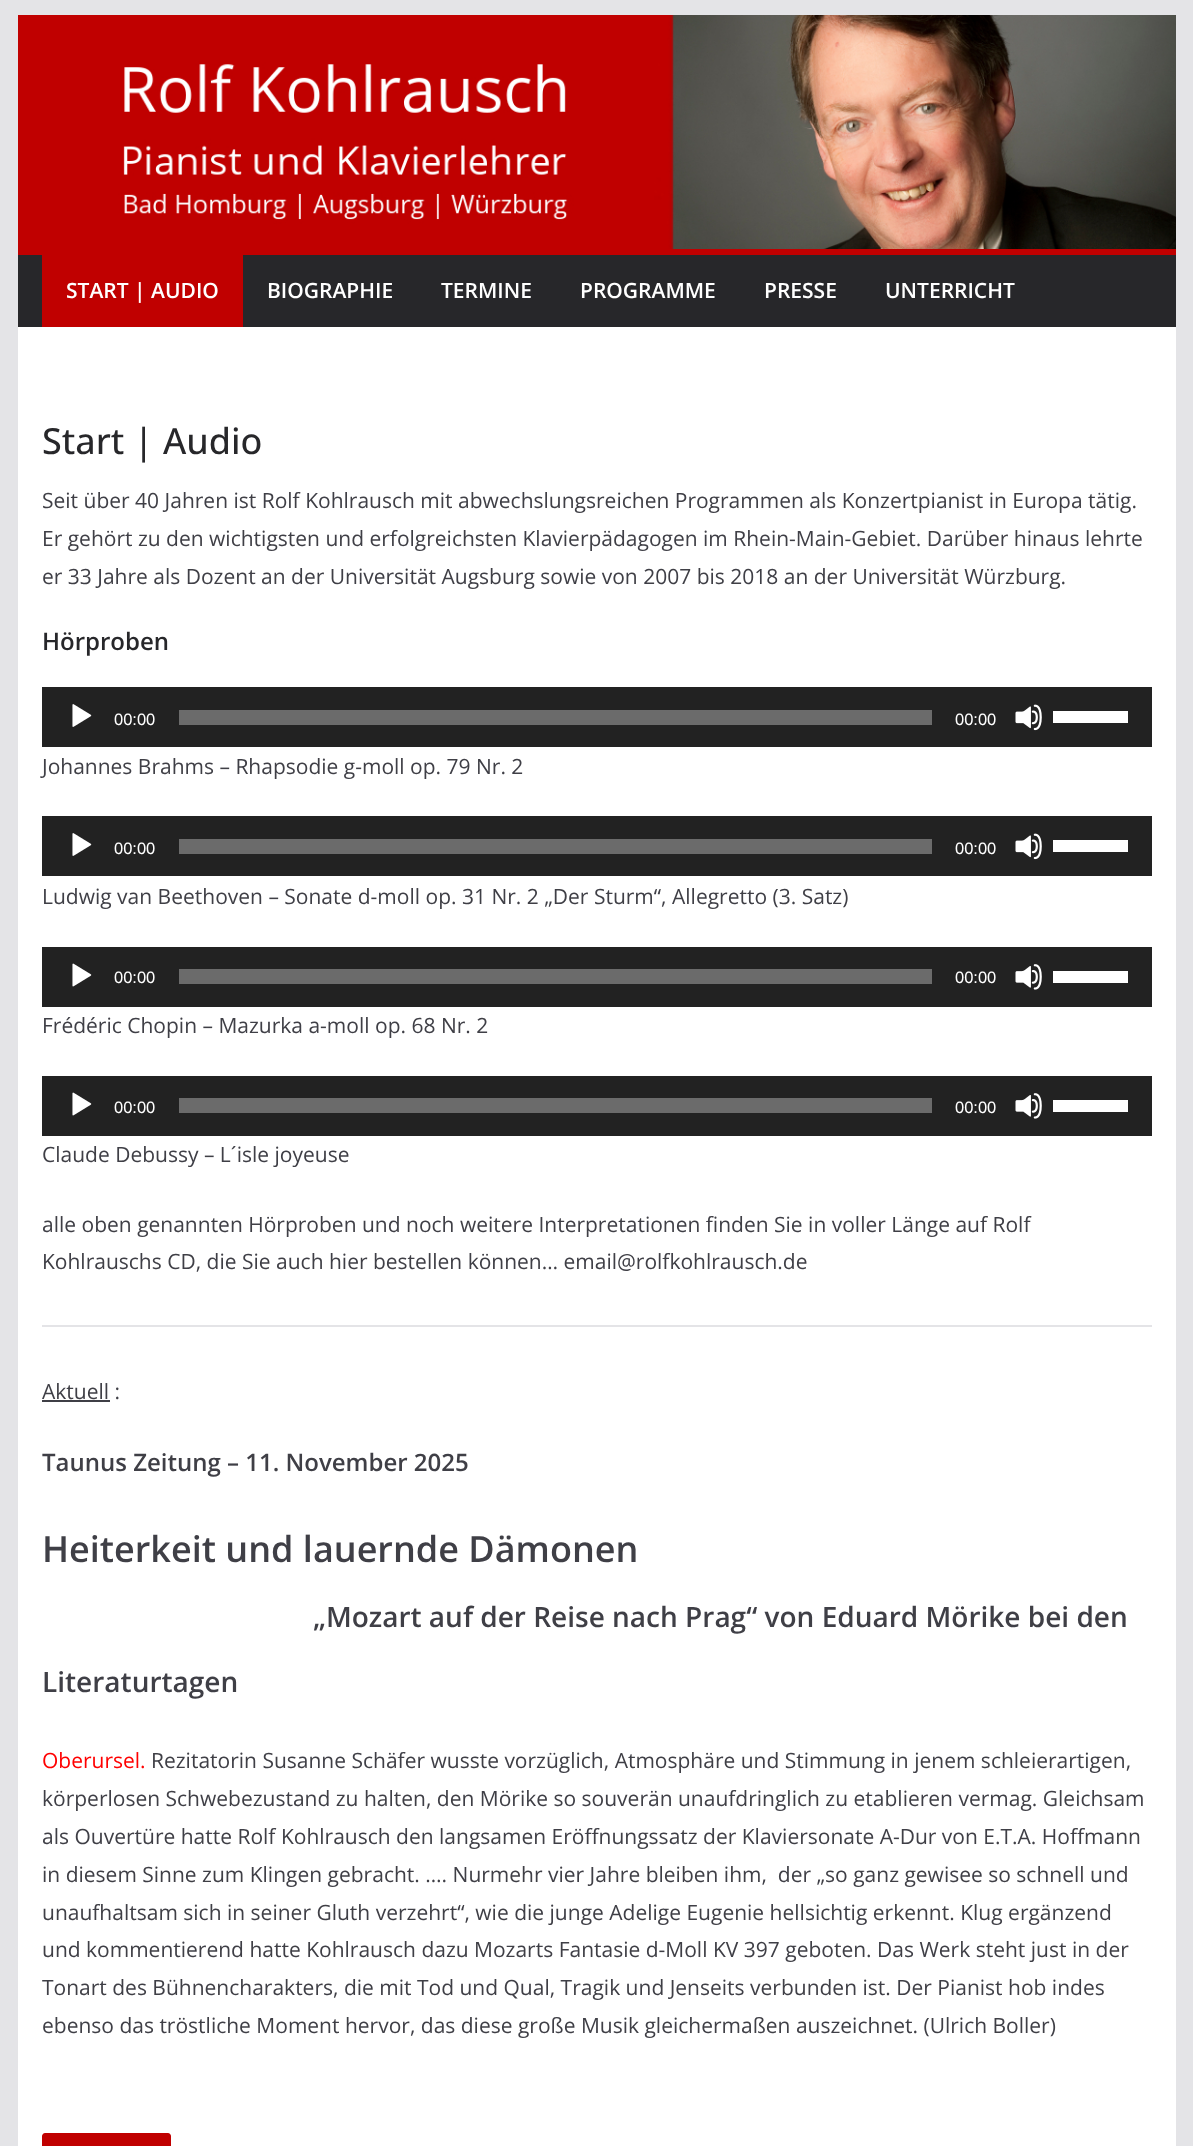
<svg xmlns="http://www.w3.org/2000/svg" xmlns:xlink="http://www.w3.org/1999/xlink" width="1193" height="2146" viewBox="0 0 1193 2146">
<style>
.cls-1{font:600 21px Open Sans;fill:#ffffff}
.cls-2{font:500 36px Open Sans;fill:#27272a}
.cls-3{font:21px Open Sans;fill:#3f3f46}
.cls-4{font:600 24px Open Sans;fill:#27272a}
.cls-5{font:16.5px Liberation Sans;fill:#ffffff}
.cls-6{font:600 24px Open Sans;fill:#3f3f46}
.cls-7{font:600 36px Open Sans;fill:#3f3f46}
.cls-8{font:600 28px Open Sans;fill:#3f3f46}
.cls-9{font:21px Open Sans;fill:#ff0000}
</style>
<rect width="100%" height="100%" fill="#e4e4e7"/>
<image xlink:href="image0.png" x="18" y="15" width="1158" height="234"/>
<rect fill="#27272a" x="18" y="255" width="1158" height="72"/>
<rect fill="#c00000" x="18" y="249" width="1158" height="6"/>
<rect fill="#c00000" x="42" y="255" width="201" height="72"/>
<rect fill="#ffffff" x="18" y="327" width="1158" height="1819"/>
<rect fill="#222222" x="42" y="687" width="1110" height="60"/>
<image xlink:href="image1.png" x="72" y="704" width="20" height="23"/>
<rect fill="#6b6b6b" x="179" y="710" width="753" height="15"/>
<image xlink:href="image2.png" x="1015" y="704" width="27" height="27"/>
<rect fill="#ffffff" x="1053" y="711" width="75" height="12"/>
<rect fill="#222222" x="42" y="816" width="1110" height="60"/>
<image xlink:href="image1.png" x="72" y="833" width="20" height="23"/>
<rect fill="#6b6b6b" x="179" y="839" width="753" height="15"/>
<image xlink:href="image2.png" x="1015" y="833" width="27" height="27"/>
<rect fill="#ffffff" x="1053" y="840" width="75" height="12"/>
<rect fill="#222222" x="42" y="947" width="1110" height="60"/>
<image xlink:href="image3.png" x="72" y="963" width="20" height="24"/>
<rect fill="#6b6b6b" x="179" y="969" width="753" height="15"/>
<image xlink:href="image4.png" x="1015" y="964" width="27" height="26"/>
<rect fill="#ffffff" x="1053" y="971" width="75" height="12"/>
<rect fill="#222222" x="42" y="1076" width="1110" height="60"/>
<image xlink:href="image3.png" x="72" y="1092" width="20" height="24"/>
<rect fill="#6b6b6b" x="179" y="1098" width="753" height="15"/>
<image xlink:href="image4.png" x="1015" y="1093" width="27" height="26"/>
<rect fill="#ffffff" x="1053" y="1100" width="75" height="12"/>
<rect fill="#e4e4e7" x="42" y="1325" width="1110" height="2"/>
<rect fill="#3f3f46" x="42" y="1400" width="68" height="2"/>
<path fill="#c00000" d="M45 2133H168C169.5 2133 171 2134.5 171 2136V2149H42V2136C42 2134.5 43.5 2133 45 2133Z"/>
<text class="cls-1" x="66" y="298">START | AUDIO</text>
<text class="cls-1" x="267" y="298">BIOGRAPHIE</text>
<text class="cls-1" x="441" y="298">TERMINE</text>
<text class="cls-1" x="580" y="298">PROGRAMME</text>
<text class="cls-1" x="764" y="298">PRESSE</text>
<text class="cls-1" x="885" y="298">UNTERRICHT</text>
<text class="cls-2" x="42" y="454">Start | Audio</text>
<text class="cls-3"><tspan x="42" y="508">Seit über 40 Jahren ist Rolf Kohlrausch mit abwechslungsreichen Programmen als Konzertpianist in Europa tätig.</tspan><tspan x="42" y="546">Er gehört zu den wichtigsten und erfolgreichsten Klavierpädagogen im Rhein-Main-Gebiet. Darüber hinaus lehrte</tspan><tspan x="42" y="584">er 33 Jahre als Dozent an der Universität Augsburg sowie von 2007 bis 2018 an der Universität Würzburg.</tspan></text>
<text class="cls-4" x="42" y="650">Hörproben</text>
<text class="cls-5" x="114" y="725">00:00</text>
<text class="cls-5" x="955" y="725">00:00</text>
<text class="cls-3" x="42" y="774">Johannes Brahms – Rhapsodie g-moll op. 79 Nr. 2</text>
<text class="cls-5" x="114" y="854">00:00</text>
<text class="cls-5" x="955" y="854">00:00</text>
<text class="cls-3" x="42" y="904">Ludwig van Beethoven – Sonate d-moll op. 31 Nr. 2 „Der Sturm“, Allegretto (3. Satz)</text>
<text class="cls-5" x="114" y="983">00:00</text>
<text class="cls-5" x="955" y="983">00:00</text>
<text class="cls-3" x="42" y="1033">Frédéric Chopin – Mazurka a-moll op. 68 Nr. 2</text>
<text class="cls-5" x="114" y="1113">00:00</text>
<text class="cls-5" x="955" y="1113">00:00</text>
<text class="cls-3" x="42" y="1162">Claude Debussy – L´isle joyeuse</text>
<text class="cls-3"><tspan x="42" y="1232">alle oben genannten Hörproben und noch weitere Interpretationen finden Sie in voller Länge auf Rolf</tspan><tspan x="42" y="1269">Kohlrauschs CD, die Sie auch hier bestellen können… email@rolfkohlrausch.de</tspan></text>
<text class="cls-3" x="42" y="1399">Aktuell :</text>
<text class="cls-6" x="42" y="1471">Taunus Zeitung – 11. November 2025</text>
<text class="cls-7" x="42" y="1562">Heiterkeit und lauernde Dämonen</text>
<text class="cls-8" x="313" y="1627">„Mozart auf der Reise nach Prag“ von Eduard Mörike bei den</text>
<text class="cls-8" x="42" y="1692">Literaturtagen</text>
<text class="cls-9" x="42" y="1768">Oberursel.</text>
<text class="cls-3" x="151" y="1768">Rezitatorin Susanne Schäfer wusste vorzüglich, Atmosphäre und Stimmung in jenem schleierartigen,</text>
<text class="cls-3" xml:space="preserve"><tspan x="42" y="1806">körperlosen Schwebezustand zu halten, den Mörike so souverän unaufdringlich zu etablieren vermag. Gleichsam</tspan><tspan x="42" y="1844">als Ouvertüre hatte Rolf Kohlrausch den langsamen Eröffnungssatz der Klaviersonate A-Dur von E.T.A. Hoffmann</tspan><tspan x="42" y="1882">in diesem Sinne zum Klingen gebracht. …. Nurmehr vier Jahre bleiben ihm,  der „so ganz gewisee so schnell und</tspan><tspan x="42" y="1920">unaufhaltsam sich in seiner Gluth verzehrt“, wie die junge Adelige Eugenie hellsichtig erkennt. Klug ergänzend</tspan><tspan x="42" y="1957">und kommentierend hatte Kohlrausch dazu Mozarts Fantasie d-Moll KV 397 geboten. Das Werk steht just in der</tspan><tspan x="42" y="1995">Tonart des Bühnencharakters, die mit Tod und Qual, Tragik und Jenseits verbunden ist. Der Pianist hob indes</tspan><tspan x="42" y="2033">ebenso das tröstliche Moment hervor, das diese große Musik gleichermaßen auszeichnet. (Ulrich Boller)</tspan></text>
</svg>
